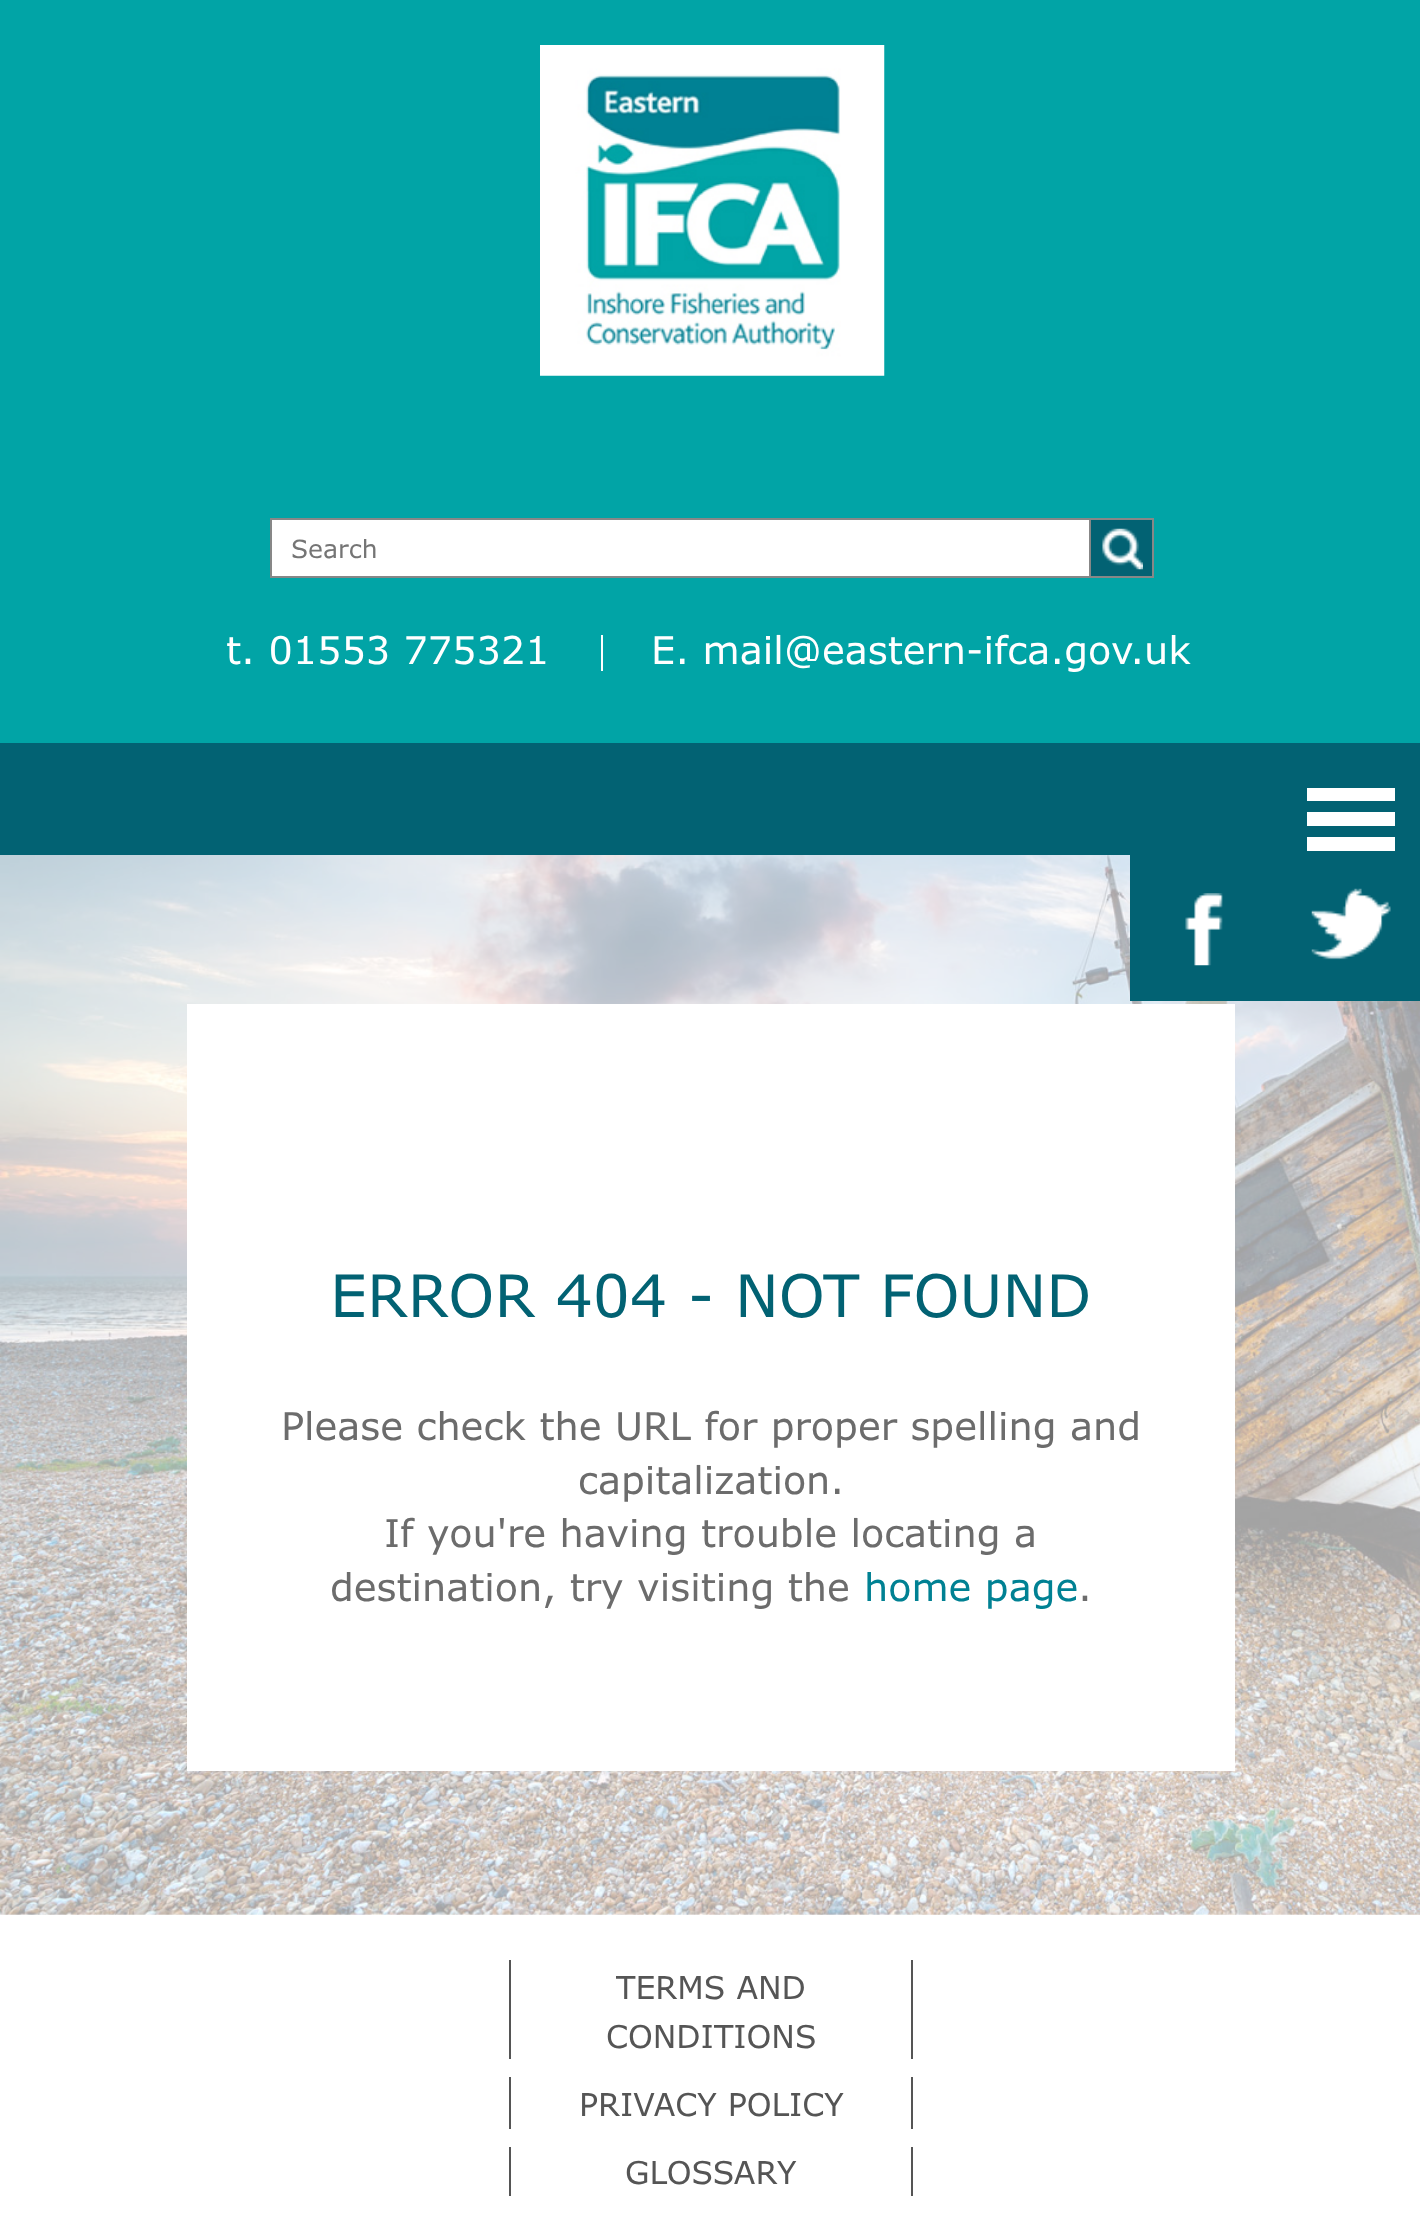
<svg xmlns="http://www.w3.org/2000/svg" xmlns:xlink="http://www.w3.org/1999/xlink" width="1420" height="2223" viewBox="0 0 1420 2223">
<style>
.cls-1{font:25px Verdana;fill:#757575}
.cls-2{font:38.25px Verdana;fill:#ffffff}
.cls-3{font:58.5px Verdana;fill:#026273}
.cls-4{font:38.25px Verdana;fill:#6c6c6c}
.cls-5{font:38.25px Verdana;fill:#008193}
.cls-6{font:31.5px Verdana;fill:#555555}
</style>
<rect width="100%" height="100%" fill="#ffffff"/>
<rect fill="#01a4a6" x="0" y="0" width="1420" height="743"/>
<image xlink:href="image0.png" x="540" y="45" width="345" height="331"/>
<rect fill="#ffffff" stroke="#878787" stroke-width="2" x="271" y="519" width="819" height="58"/>
<rect fill="#026273" x="1091" y="520" width="61" height="56"/>
<rect fill="#878787" x="1091" y="518" width="63" height="2"/>
<rect fill="#878787" x="1152" y="518" width="2" height="60"/>
<rect fill="#878787" x="1091" y="576" width="63" height="2"/>
<image xlink:href="image1.png" x="1102" y="528" width="41" height="42"/>
<rect fill="#ffffff" x="601" y="635" width="2" height="36"/>
<rect fill="#026273" x="0" y="743" width="1420" height="112"/>
<rect fill="#ffffff" x="1307" y="812" width="88" height="14"/>
<rect fill="#ffffff" x="1307" y="788" width="88" height="13"/>
<rect fill="#ffffff" x="1307" y="837" width="88" height="14"/>
<image xlink:href="image4.png" x="0" y="855" width="1420" height="1060"/>
<rect fill="#026273" x="1130" y="855" width="290" height="146"/>
<image xlink:href="image2.png" x="1311" y="888" width="80" height="72"/>
<image xlink:href="image3.png" x="1185" y="893" width="38" height="73"/>
<rect fill="#ffffff" x="187" y="1004" width="1048" height="767"/>
<rect fill="#555555" x="911" y="1960" width="2" height="99"/>
<rect fill="#555555" x="509" y="1960" width="2" height="99"/>
<rect fill="#555555" x="911" y="2077" width="2" height="52"/>
<rect fill="#555555" x="509" y="2077" width="2" height="52"/>
<rect fill="#555555" x="911" y="2147" width="2" height="49"/>
<rect fill="#555555" x="509" y="2147" width="2" height="49"/>
<text class="cls-1" x="291" y="558">Search</text>
<text class="cls-2" x="226" y="664">t. 01553 775321</text>
<text class="cls-2" x="651" y="664">E. mail@eastern-ifca.gov.uk</text>
<text class="cls-3" x="330" y="1317">ERROR 404 - NOT FOUND</text>
<text class="cls-4" x="281" y="1440">Please check the URL for proper spelling and</text>
<text class="cls-4" x="578" y="1494">capitalization.</text>
<text class="cls-4" x="384" y="1547">If you're having trouble locating a</text>
<text class="cls-4" x="330" y="1601">destination, try visiting the</text>
<text class="cls-5" x="864" y="1601">home page</text>
<text class="cls-4" x="1078" y="1601">.</text>
<text class="cls-6" x="616" y="1999">TERMS AND</text>
<text class="cls-6" x="606" y="2048">CONDITIONS</text>
<text class="cls-6" x="579" y="2116">PRIVACY POLICY</text>
<text class="cls-6" x="625" y="2184">GLOSSARY</text>
</svg>
